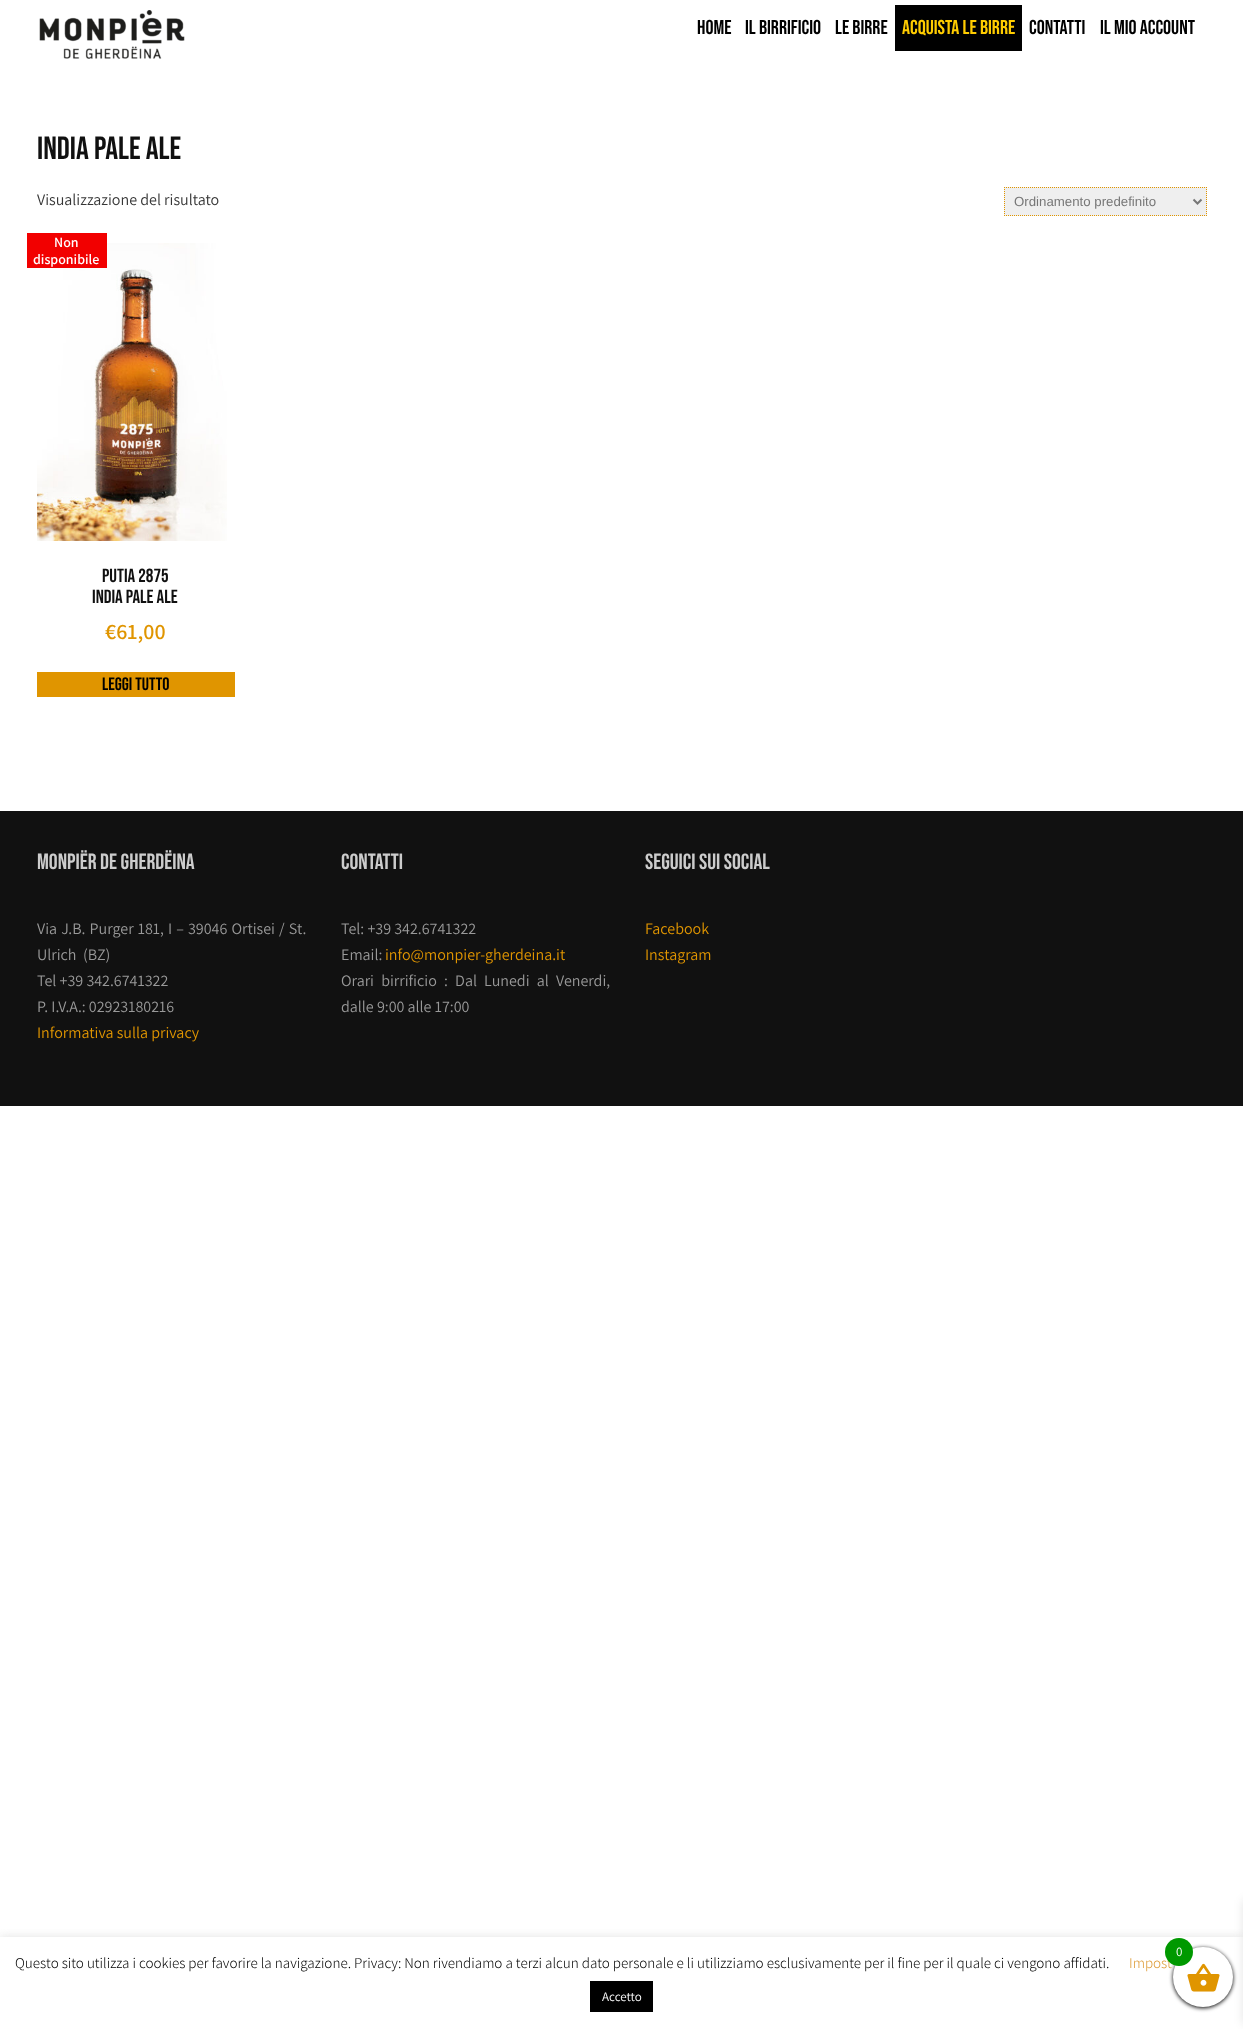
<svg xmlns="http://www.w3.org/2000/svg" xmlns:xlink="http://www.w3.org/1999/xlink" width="1243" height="2029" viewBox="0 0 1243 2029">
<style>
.cls-1{font:20px Bebas Neue;fill:#000000}
.cls-2{font:20px Bebas Neue;fill:#ffcc00}
.cls-3{font:32px Bebas Neue;fill:#101010}
.cls-4{font:16px Assistant;fill:#363636}
.cls-5{font:13.25px Liberation Sans;fill:#777777}
.cls-6{font:600 14px Assistant;fill:#ffffff}
.cls-7{font:19px Bebas Neue;fill:#101010}
.cls-8{font:600 22px Assistant;fill:#e09500}
.cls-9{font:18px Bebas Neue;fill:#000000}
.cls-10{font:22px Bebas Neue;fill:#cccccc}
.cls-11{font:16px Assistant;fill:#999999}
.cls-12{font:16px Assistant;fill:#e09500}
.cls-13{font:300 15px Assistant;fill:#000000}
.cls-14{font:300 15px Assistant;fill:#dd9933}
.cls-15{font:13px Assistant;fill:#ffffff}
</style>
<defs>
<clipPath id="clip1"><rect x="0" y="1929" width="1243" height="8"/></clipPath>
</defs>
<rect width="100%" height="100%" fill="#ffffff"/>
<image xlink:href="image0.png" x="39" y="10" width="146" height="49"/>
<rect fill="#000000" x="895" y="5" width="127" height="46"/>
<rect fill="#efefef" x="1004" y="187" width="203" height="29"/>
<path fill="none" stroke="#e09500" stroke-dasharray="1 1" d="M1004 187.5H1207"/>
<path fill="none" stroke="#e09500" stroke-dasharray="1 1" d="M1206.5 187V216"/>
<path fill="none" stroke="#e09500" stroke-dasharray="1 1" d="M1004 215.5H1207"/>
<path fill="none" stroke="#e09500" stroke-dasharray="1 1" d="M1004.5 187V216"/>
<path fill="none" stroke="#777777" stroke-width="2" d="M1193.5 199.5L1197.5 203.5L1201.5 199.5"/>
<image xlink:href="image1.png" x="37" y="243" width="190" height="298"/>
<rect fill="#f20000" x="27" y="233" width="80" height="35"/>
<rect fill="#e09500" x="37" y="672" width="198" height="25"/>
<rect fill="#111111" x="0" y="811" width="1243" height="295"/>
<rect fill="#000000" filter="blur(2px)" x="1173" y="1948" width="60" height="60" rx="30"/>
<rect fill="#000000" fill-opacity="0.1" filter="blur(5px)" x="1243" y="1900" width="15" height="124"/>
<g clip-path="url(#clip1)">
<rect fill="#acabab" fill-opacity="0.3" filter="blur(5px)" x="0" y="1936" width="1243" height="92"/>
</g>
<circle fill="#ffffff" cx="1203" cy="1977" r="30"/>
<image xlink:href="image2.png" x="1187" y="1963" width="33" height="29"/>
<rect fill="#000000" x="590" y="1981" width="63" height="31"/>
<text class="cls-1" x="697" y="34">HOME</text>
<text class="cls-1" x="745" y="34">IL BIRRIFICIO</text>
<text class="cls-1" x="835" y="34">LE BIRRE</text>
<text class="cls-2" x="902" y="34">ACQUISTA LE BIRRE</text>
<text class="cls-1" x="1029" y="34">CONTATTI</text>
<text class="cls-1" x="1100" y="34">IL MIO ACCOUNT</text>
<text class="cls-3" x="37" y="159">India Pale Ale</text>
<text class="cls-4" x="37" y="205">Visualizzazione del risultato</text>
<text class="cls-5" x="1014" y="206">Ordinamento predefinito</text>
<text class="cls-6" x="54" y="247">Non</text>
<text class="cls-6" x="33" y="264">disponibile</text>
<text class="cls-7" x="102" y="582">Putia 2875</text>
<text class="cls-7" x="92" y="603">India Pale Ale</text>
<text class="cls-8" x="105" y="639">€61,00</text>
<text class="cls-9" x="102" y="690">Leggi tutto</text>
<text class="cls-10" x="37" y="869">Monpiër de Gherdëina</text>
<text class="cls-11" xml:space="preserve"><tspan x="37" y="934" word-spacing="0.9">Via J.B. Purger 181, I – 39046 Ortisei / St.</tspan><tspan x="37" y="960">Ulrich  (BZ)</tspan><tspan x="37" y="986">Tel +39 342.6741322</tspan><tspan x="37" y="1012">P. I.V.A.: 02923180216</tspan></text>
<text class="cls-12" x="37" y="1038">Informativa sulla privacy</text>
<text class="cls-10" x="341" y="869">Contatti</text>
<text class="cls-11"><tspan x="341" y="934">Tel: +39 342.6741322</tspan><tspan x="341" y="960">Email:</tspan></text>
<text class="cls-12" x="385" y="960">info@monpier-gherdeina.it</text>
<text class="cls-11"><tspan x="341" y="986" word-spacing="4">Orari birrificio : Dal Lunedi al Venerdi,</tspan><tspan x="341" y="1012">dalle 9:00 alle 17:00</tspan></text>
<text class="cls-10" x="645" y="869">Seguici sui social</text>
<text class="cls-12"><tspan x="645" y="934">Facebook</tspan><tspan x="645" y="960">Instagram</tspan></text>
<text class="cls-13" x="15" y="1968">Questo sito utilizza i cookies per favorire la navigazione. Privacy: Non rivendiamo a terzi alcun dato personale e li utilizziamo esclusivamente per il fine per il quale ci vengono affidati.</text>
<text class="cls-14" x="1129" y="1968">Impost</text>
<circle fill="#009900" cx="1179" cy="1952" r="14"/>
<text class="cls-15" x="1176" y="1956">0</text>
<text class="cls-15" x="602" y="2001">Accetto</text>
</svg>
